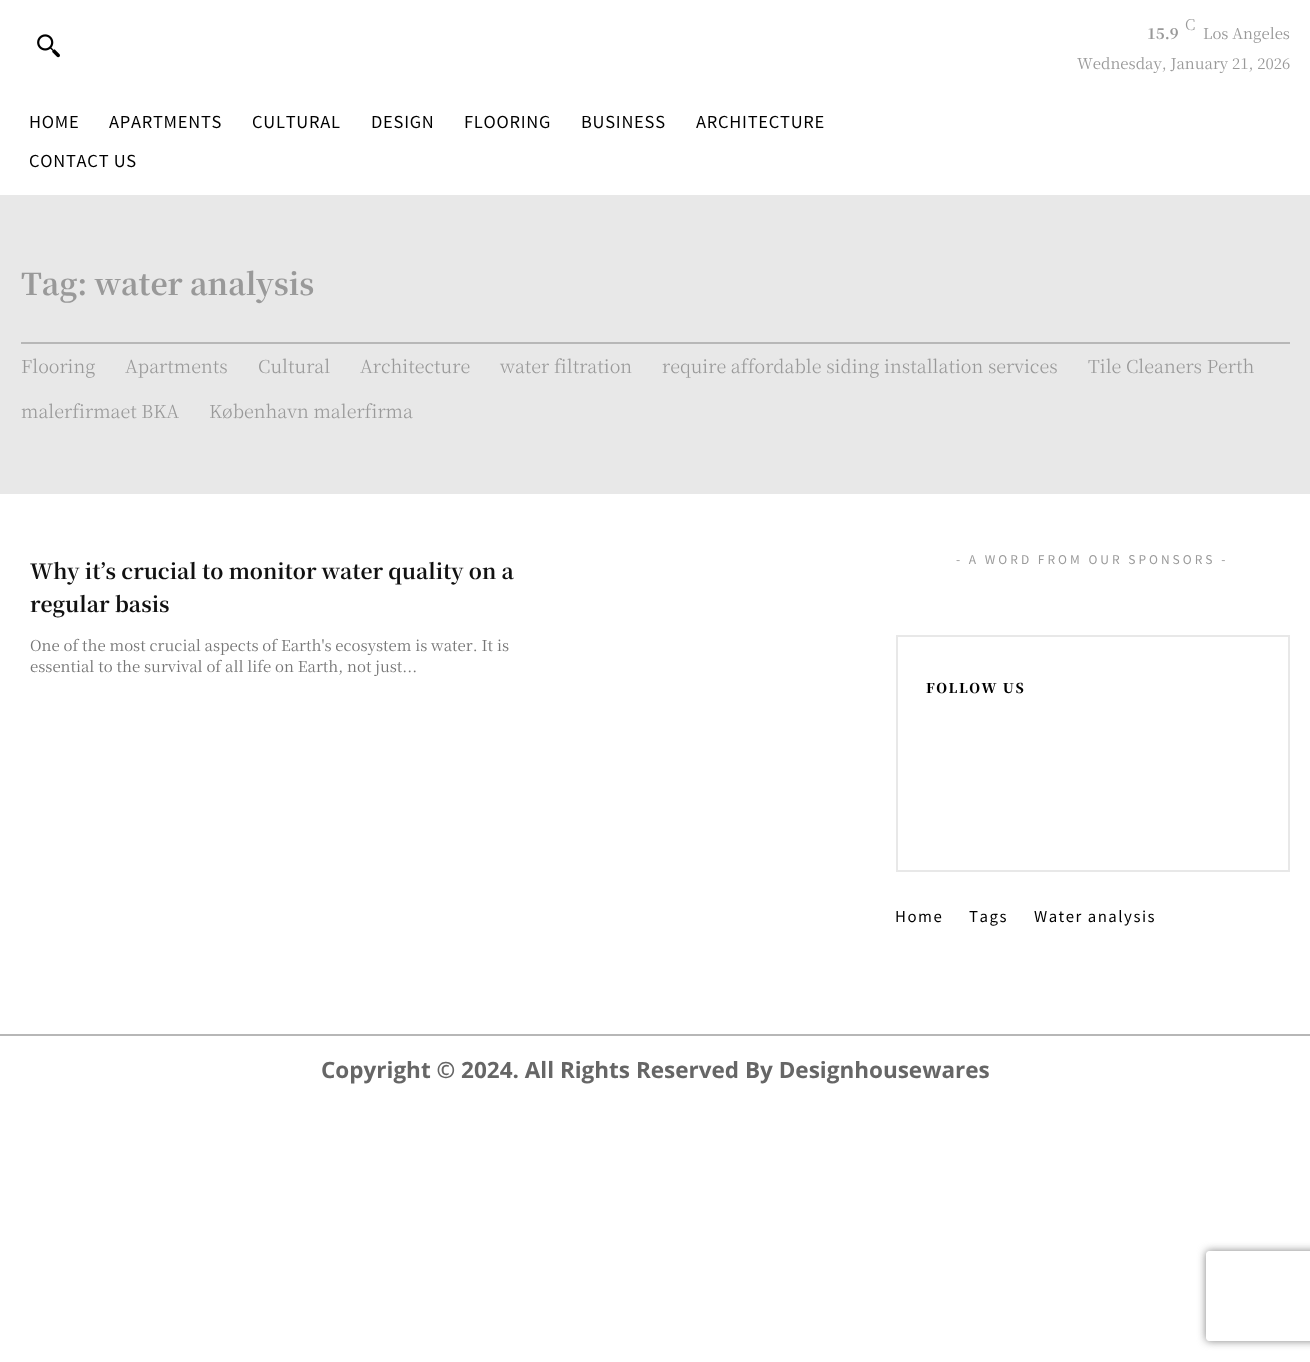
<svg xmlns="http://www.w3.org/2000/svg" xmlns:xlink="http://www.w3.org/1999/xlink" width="1310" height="1362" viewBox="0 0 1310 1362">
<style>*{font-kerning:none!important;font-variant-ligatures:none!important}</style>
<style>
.cls-1{font:300 15px Noto Serif JP;fill:#999999}
.cls-2{font:bold 15px Noto Serif JP;fill:#999999}
.cls-3{font:15px Noto Serif JP;fill:#999999}
.cls-4{font:100 16.5px Noto Sans JP;letter-spacing:0.75px;fill:#000000}
.cls-5{font:bold 30px Noto Serif JP;fill:#999999}
.cls-6{font:300 18px Noto Serif JP;fill:#999999}
.cls-7{font:bold 21px Noto Serif JP;fill:#111111}
.cls-8{font:15px Noto Serif JP;fill:#767676}
.cls-9{font:100 12px Noto Sans JP;letter-spacing:3px;fill:#999999}
.cls-10{font:900 13.5px Noto Serif JP;letter-spacing:1.5px;fill:#000000}
.cls-11{font:100 15px Noto Sans JP;letter-spacing:1.5px;fill:#000000}
.cls-12{font:bold 22.5px Open Sans;fill:#666666}
</style>
<defs>
<clipPath id="clip1"><path d="M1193 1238H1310V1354H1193ZM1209 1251H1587C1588.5 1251 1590 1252.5 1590 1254V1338C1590 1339.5 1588.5 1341 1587 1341H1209C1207.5 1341 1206 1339.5 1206 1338V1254C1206 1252.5 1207.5 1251 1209 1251Z" clip-rule="evenodd"/></clipPath>
</defs>
<rect width="100%" height="100%" fill="#ffffff"/>
<image xlink:href="image0.png" x="37" y="34" width="23" height="24"/>
<rect fill="#e8e8e8" x="0" y="195" width="1310" height="299"/>
<rect fill="#b7b7b7" x="21" y="342" width="1269" height="2"/>
<rect fill="none" stroke="#e8e8e8" stroke-width="2" x="897" y="636" width="392" height="235"/>
<rect fill="#b7b7b7" x="0" y="1034" width="1310" height="2"/>
<g clip-path="url(#clip1)">
<rect fill="#808080" filter="blur(4px)" x="1206" y="1251" width="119" height="90" rx="3"/>
</g>
<text class="cls-1" x="1185" y="30">C</text>
<text class="cls-2" x="1147" y="39">15.9</text>
<text class="cls-3" x="1203" y="39">Los Angeles</text>
<text class="cls-3" x="1077" y="69">Wednesday, January 21, 2026</text>
<text class="cls-4" x="29" y="128">HOME</text>
<text class="cls-4" x="109" y="128">APARTMENTS</text>
<text class="cls-4" x="252" y="128">CULTURAL</text>
<text class="cls-4" x="371" y="128">DESIGN</text>
<text class="cls-4" x="464" y="128">FLOORING</text>
<text class="cls-4" x="581" y="128">BUSINESS</text>
<text class="cls-4" x="696" y="128">ARCHITECTURE</text>
<text class="cls-4" x="29" y="167">CONTACT US</text>
<text class="cls-5" x="21" y="295">Tag: water analysis</text>
<text class="cls-6" x="21" y="373">Flooring</text>
<text class="cls-6" x="125" y="373">Apartments</text>
<text class="cls-6" x="258" y="373">Cultural</text>
<text class="cls-6" x="360" y="373">Architecture</text>
<text class="cls-6" x="500" y="373">water filtration</text>
<text class="cls-6" x="662" y="373">require affordable siding installation services</text>
<text class="cls-6" x="1088" y="373">Tile Cleaners Perth</text>
<text class="cls-6" x="21" y="418">malerfirmaet BKA</text>
<text class="cls-6" x="209" y="418">København malerfirma</text>
<text class="cls-7"><tspan x="30" y="579">Why it’s crucial to monitor water quality on a</tspan><tspan x="30" y="612">regular basis</tspan></text>
<text class="cls-8" x="30" y="651">One of the most crucial aspects of Earth's ecosystem is water. It</text>
<text class="cls-8" x="497" y="651">is</text>
<text class="cls-8" x="30" y="672">essential to the survival of all life on Earth, not just...</text>
<text class="cls-9" x="956" y="564">- A WORD FROM OUR SPONSORS -</text>
<text class="cls-10" x="926" y="693">FOLLOW US</text>
<text class="cls-11" x="895" y="922">Home</text>
<text class="cls-11" x="969" y="922">Tags</text>
<text class="cls-11" x="1034" y="922">Water analysis</text>
<text class="cls-12" x="321" y="1078">Copyright © 2024. All Rights Reserved By Designhousewares</text>
</svg>
